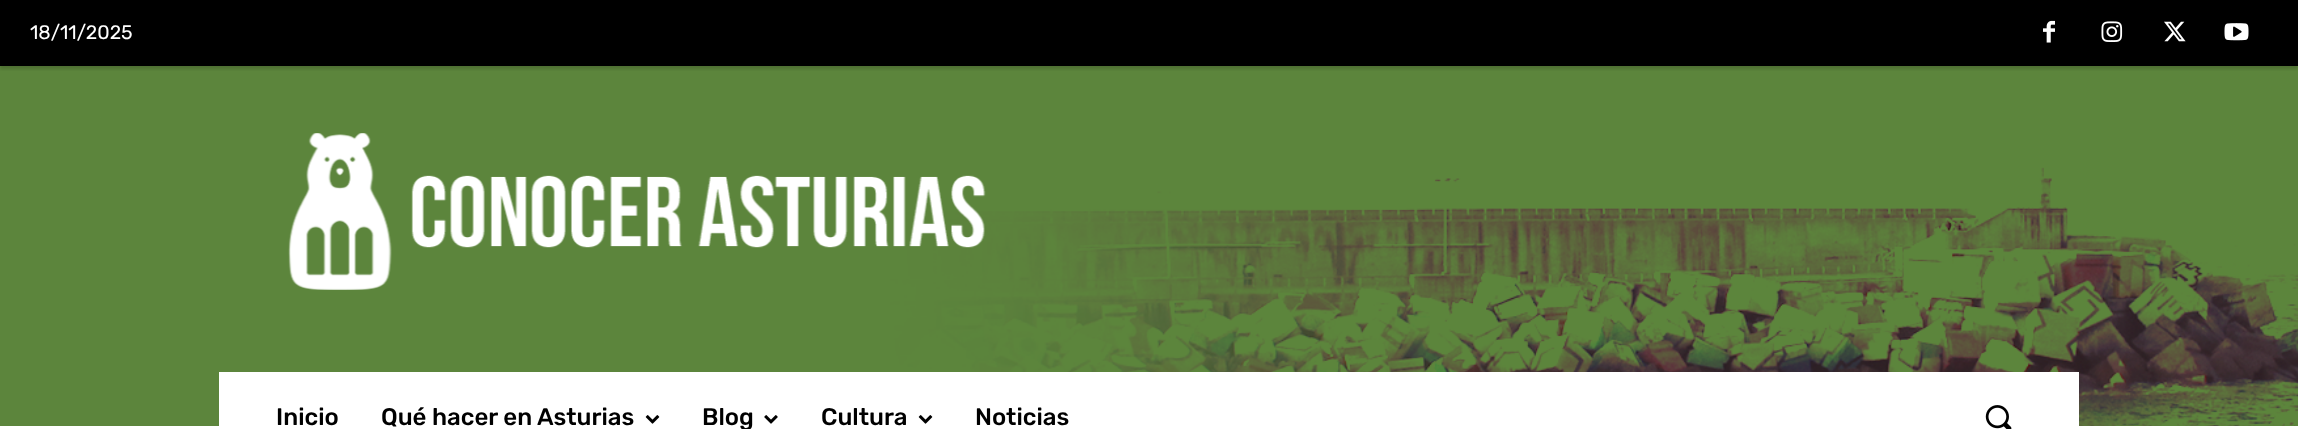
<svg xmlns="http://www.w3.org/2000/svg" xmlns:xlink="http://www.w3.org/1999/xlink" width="2298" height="429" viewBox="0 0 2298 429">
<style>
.cls-1{font:19.5px Rubik;fill:#ffffff}
.cls-2{font:500 24px Rubik;fill:#000000}
</style>
<defs>
<clipPath id="clip1"><rect x="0" y="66" width="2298" height="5"/></clipPath>
</defs>
<rect width="100%" height="100%" fill="#ffffff"/>
<rect fill="#000000" x="0" y="0" width="2298" height="66"/>
<image xlink:href="image0.png" x="2043" y="20" width="12" height="23"/>
<image xlink:href="image1.png" x="2101" y="21" width="22" height="21"/>
<image xlink:href="image2.png" x="2164" y="21" width="22" height="21"/>
<image xlink:href="image3.png" x="2224" y="23" width="25" height="18"/>
<image xlink:href="image4.png" x="0" y="66" width="2298" height="360"/>
<g clip-path="url(#clip1)">
<rect fill="#0a0000" fill-opacity="0.15" filter="blur(1.5px)" x="0" y="3" width="2298" height="66"/>
</g>
<image xlink:href="image5.png" x="288" y="133" width="698" height="157"/>
<rect fill="#ffffff" x="219" y="372" width="1860" height="54"/>
<image xlink:href="image6.png" x="645" y="415" width="15" height="9"/>
<image xlink:href="image7.png" x="764" y="415" width="14" height="9"/>
<image xlink:href="image6.png" x="918" y="415" width="15" height="9"/>
<image xlink:href="image8.png" x="1985" y="405" width="27" height="24"/>
<text class="cls-1" x="30" y="39">18/11/2025</text>
<text class="cls-2" x="276" y="425">Inicio</text>
<text class="cls-2" x="381" y="425">Qué hacer en Asturias</text>
<text class="cls-2" x="702" y="425">Blog</text>
<text class="cls-2" x="821" y="425">Cultura</text>
<text class="cls-2" x="975" y="425">Noticias</text>
</svg>
